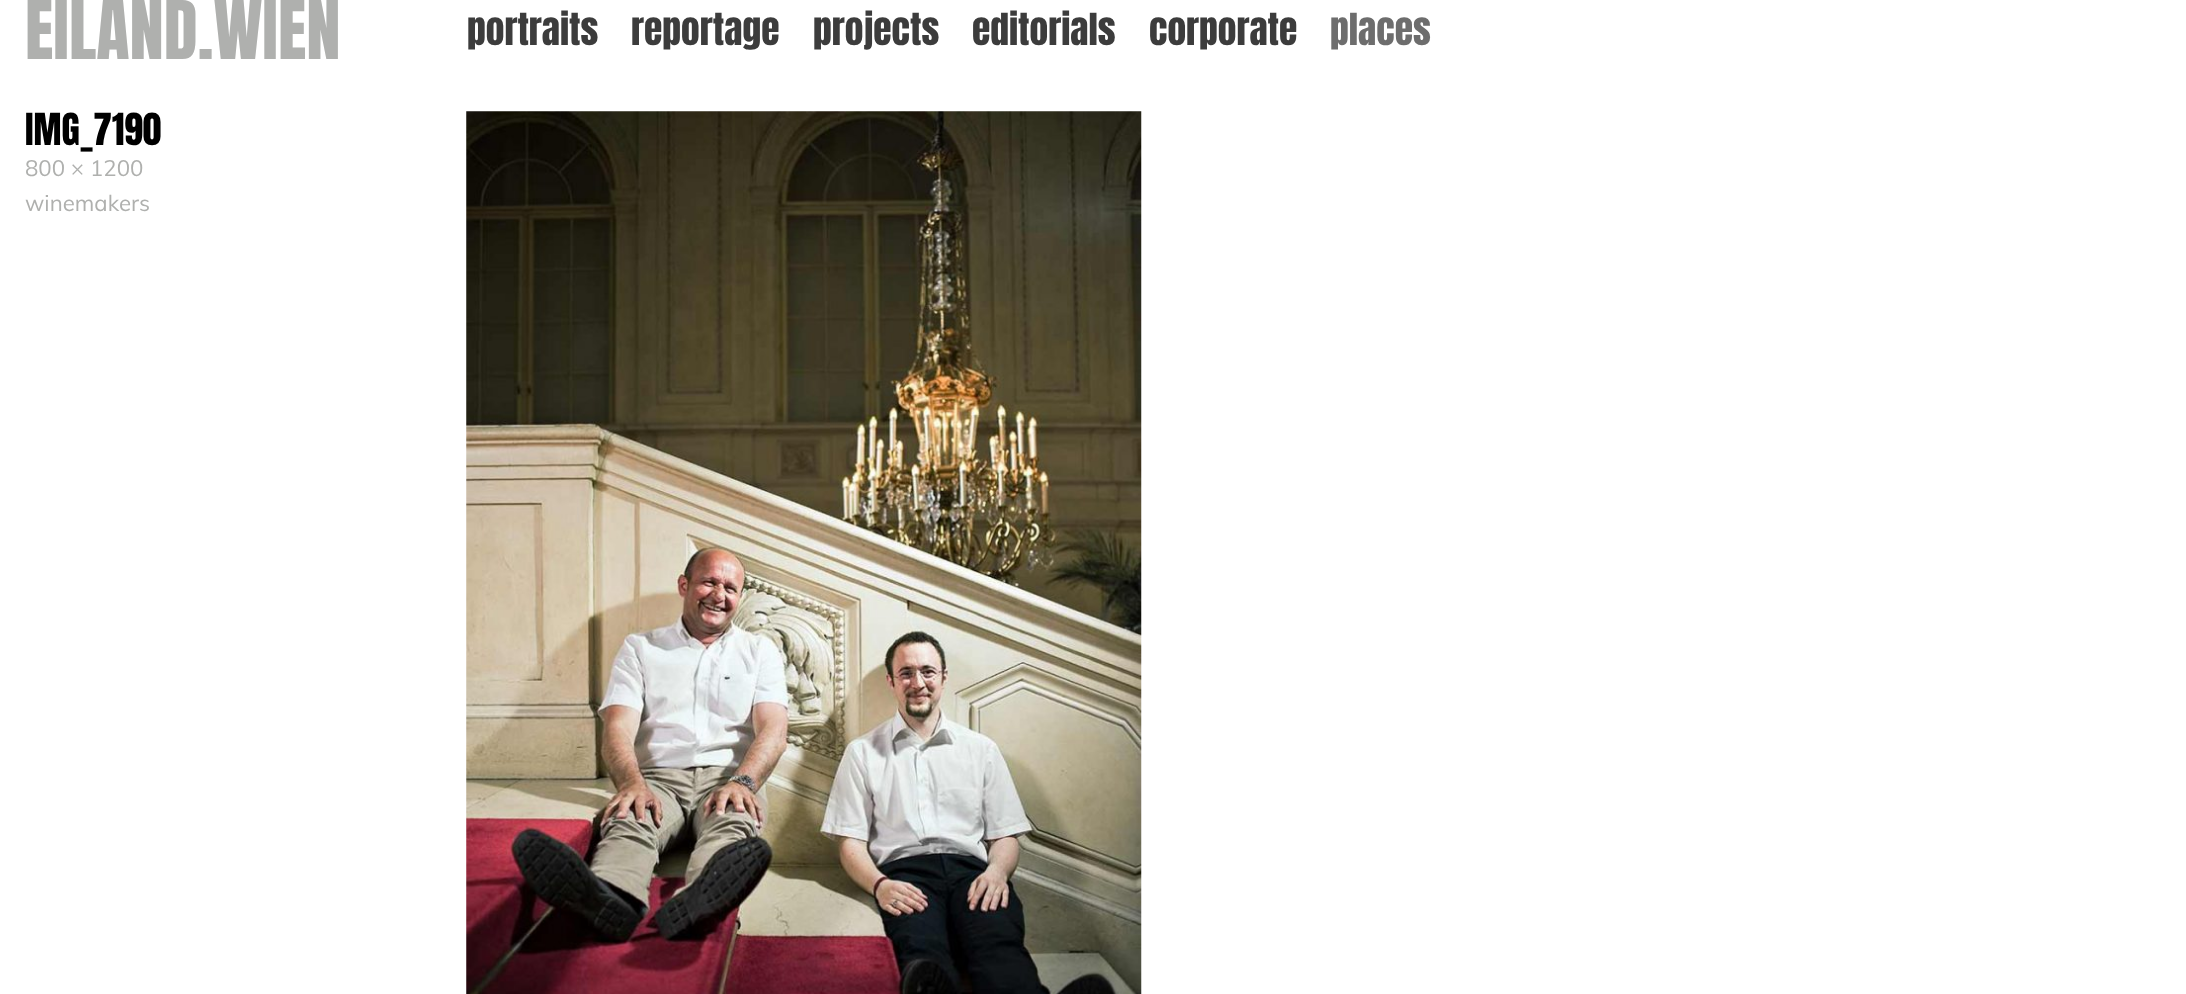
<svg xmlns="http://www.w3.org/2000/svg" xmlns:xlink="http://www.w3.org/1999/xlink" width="2186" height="994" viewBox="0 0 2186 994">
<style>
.cls-1{font:68.75px Anton;fill:#afb0ae}
.cls-2{font:37.5px Anton;fill:#3c3c3c}
.cls-3{font:37.5px Anton;fill:#6d6d6d}
.cls-4{font:37.5px Anton;fill:#000000}
.cls-5{font:22.25px Muli;fill:#afb0ae}
</style>
<rect width="100%" height="100%" fill="#ffffff"/>
<image xlink:href="image0.png" x="466" y="111" width="676" height="883"/>
<text class="cls-1" x="25" y="59">EILAND.WIEN</text>
<text class="cls-2" x="467" y="45">portraits</text>
<text class="cls-2" x="631" y="45">reportage</text>
<text class="cls-2" x="813" y="45">projects</text>
<text class="cls-2" x="972" y="45">editorials</text>
<text class="cls-2" x="1149" y="45">corporate</text>
<text class="cls-3" x="1330" y="45">places</text>
<text class="cls-4" x="25" y="145">IMG_7190</text>
<text class="cls-5"><tspan x="25" y="176">800 × 1200</tspan><tspan x="25" y="211">winemakers</tspan></text>
</svg>
